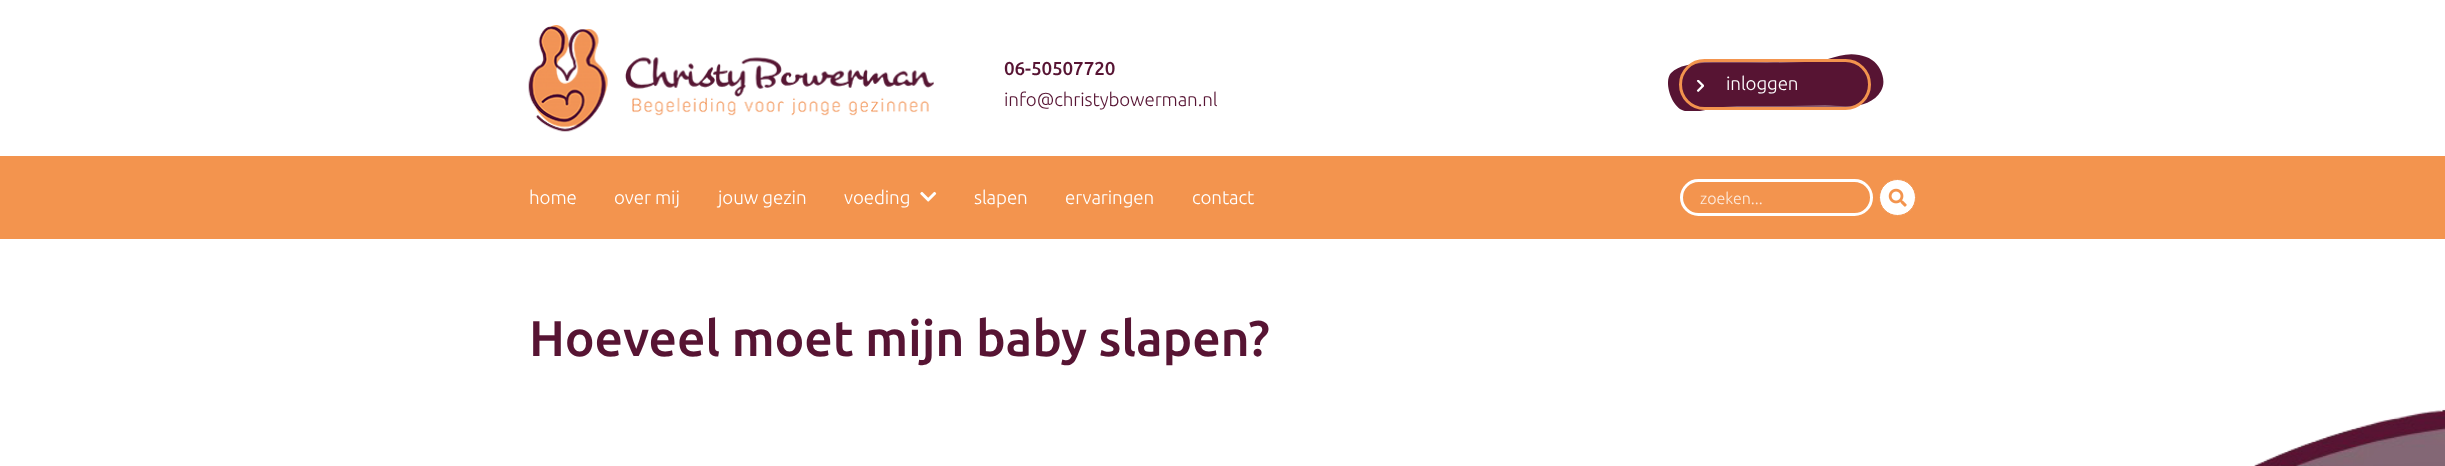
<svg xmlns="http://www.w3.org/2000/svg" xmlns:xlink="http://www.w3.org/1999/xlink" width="2445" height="466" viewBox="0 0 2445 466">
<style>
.cls-1{font:500 18.75px Ubuntu;letter-spacing:-0.1px;fill:#571433}
.cls-2{font:300 18.75px Ubuntu;letter-spacing:-0.1px;fill:#571433}
.cls-3{font:300 18.75px Ubuntu;letter-spacing:-0.1px;fill:#ffffff}
.cls-4{font:300 16px Ubuntu;fill:#fdeadc}
.cls-5{font:500 50px Ubuntu;letter-spacing:-0.15px;fill:#571433}
</style>
<defs>
<clipPath id="clip1"><rect x="1668" y="54" width="216" height="57"/></clipPath>
</defs>
<rect width="100%" height="100%" fill="#ffffff"/>
<image xlink:href="image0.png" x="528" y="25" width="406" height="107"/>
<g clip-path="url(#clip1)">
<path fill="#571433" d="M1702 63C1736 62 1771 64 1805 62C1813 61 1821 61 1828 59C1839 56 1847 53 1859 55C1863 56 1868 57 1872 60C1881 66 1887 81 1881 91C1875 102 1861 106 1850 106C1842 107 1834 105 1825 105L1789 106H1737L1723 107L1711 109L1700 111C1695 111 1690 113 1685 111C1672 109 1663 82 1671 73C1679 65 1692 64 1702 63Z"/>
</g>
<rect fill="#571433" fill-opacity="0.7" stroke="#f3944e" stroke-width="3" x="1680.5" y="60.5" width="189" height="48" rx="24"/>
<image xlink:href="image1.png" x="1696" y="80" width="8" height="12"/>
<rect fill="#f3944e" x="0" y="156" width="2445" height="83"/>
<image xlink:href="image2.png" x="920" y="191" width="17" height="11"/>
<rect fill="none" stroke="#ffffff" stroke-width="3" x="1681.5" y="180.5" width="190" height="34" rx="17"/>
<circle fill="#ffffff" stroke="#f3944e" cx="1897.5" cy="197.5" r="18"/>
<image xlink:href="image3.png" x="1888" y="188" width="19" height="19"/>
<image xlink:href="image4.png" x="2254" y="408" width="191" height="58"/>
<text class="cls-1" x="1004" y="75">06-50507720</text>
<text class="cls-2" x="1004" y="106">info@christybowerman.nl</text>
<text class="cls-3" x="1726" y="90">inloggen</text>
<text class="cls-3" x="529" y="204">home</text>
<text class="cls-3" x="614" y="204">over mij</text>
<text class="cls-3" x="718" y="204">jouw gezin</text>
<text class="cls-3" x="844" y="204">voeding</text>
<text class="cls-3" x="974" y="204">slapen</text>
<text class="cls-3" x="1065" y="204">ervaringen</text>
<text class="cls-3" x="1192" y="204">contact</text>
<text class="cls-4" x="1700" y="204">zoeken...</text>
<text class="cls-5" x="529" y="356">Hoeveel moet mijn baby slapen?</text>
</svg>
